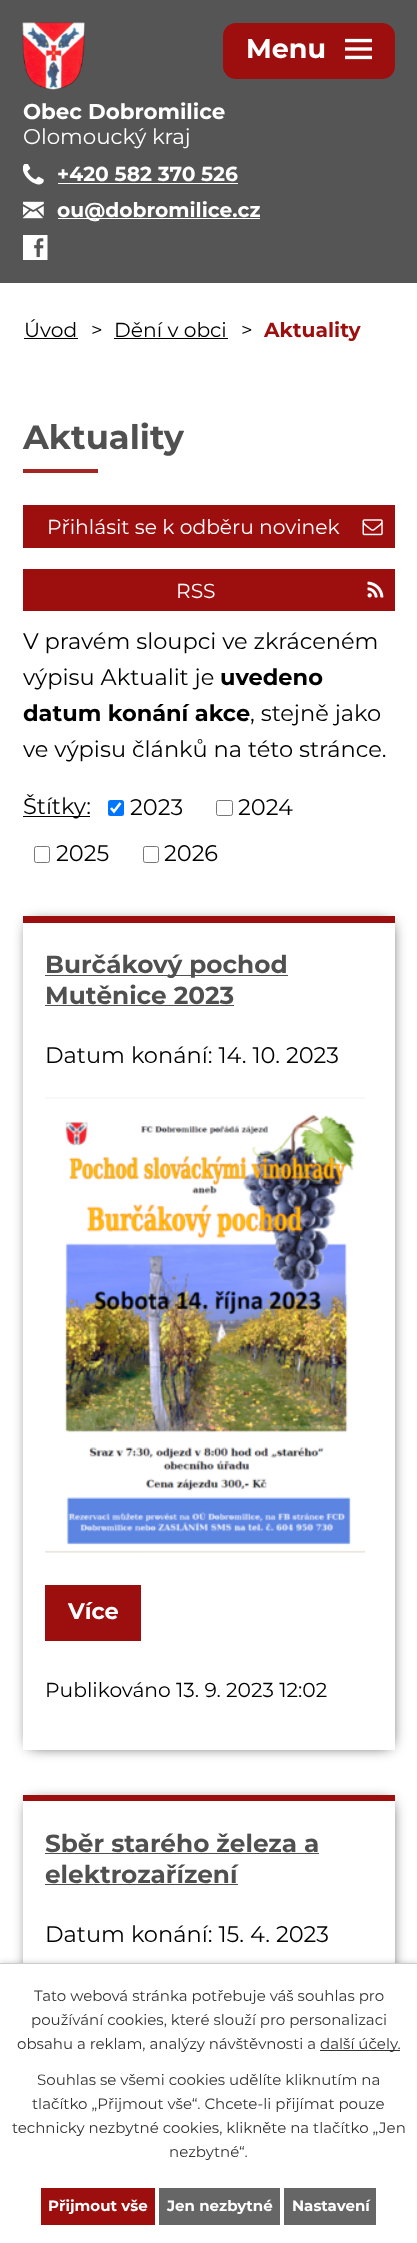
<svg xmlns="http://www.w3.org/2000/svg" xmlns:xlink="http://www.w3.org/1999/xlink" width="417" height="2243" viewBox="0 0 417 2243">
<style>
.cls-1{font:bold 27px Montserrat;fill:#ffffff}
.cls-2{font:bold 21.4px Montserrat;fill:#ffffff}
.cls-3{font:21.4px Montserrat;fill:#ffffff}
.cls-4{font:bold 20.25px Montserrat;fill:#ffffff}
.cls-5{font:20.25px Montserrat;fill:#000000}
.cls-6{font:bold 20.25px Montserrat;fill:#9d0f0e}
.cls-7{font:bold 33.75px Montserrat;fill:#505050}
.cls-8{font:20.25px Montserrat;fill:#ffffff}
.cls-9{font:22.5px Montserrat;fill:#000000}
.cls-10{font:bold 22.5px Montserrat;fill:#000000}
.cls-11{font:bold 24.75px Montserrat;fill:#505050}
.cls-12{font:bold 22.5px Montserrat;fill:#ffffff}
.cls-13{font:15px Montserrat;fill:#333333}
.cls-14{font:bold 15px Montserrat;fill:#ffffff}
</style>
<defs>
<clipPath id="clip1"><path d="M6 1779H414V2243H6ZM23 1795H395V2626H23Z" clip-rule="evenodd"/></clipPath>
</defs>
<rect width="100%" height="100%" fill="#ffffff"/>
<rect fill="#555555" x="0" y="0" width="417" height="283"/>
<rect fill="#9d0f0e" x="223" y="23" width="172" height="56" rx="13"/>
<image xlink:href="image0.png" x="345" y="38" width="27" height="22"/>
<image xlink:href="image1.png" x="22" y="22" width="63" height="68"/>
<image xlink:href="image2.png" x="23" y="164" width="21" height="21"/>
<rect fill="#ffffff" x="58" y="183" width="180" height="1"/>
<image xlink:href="image3.png" x="23" y="201" width="21" height="18"/>
<rect fill="#ffffff" x="58" y="218" width="202" height="1"/>
<image xlink:href="image4.png" x="23" y="235" width="25" height="25"/>
<rect fill="#000000" x="24" y="338" width="54" height="1"/>
<rect fill="#000000" x="114" y="338" width="114" height="1"/>
<rect fill="#a52523" x="23" y="469" width="75" height="4"/>
<rect fill="#9d0f0e" x="23" y="505" width="372" height="43"/>
<image xlink:href="image5.png" x="362" y="519" width="21" height="17"/>
<rect fill="#9d0f0e" x="23" y="569" width="372" height="42"/>
<image xlink:href="image6.png" x="367" y="581" width="17" height="17"/>
<rect fill="#000000" x="23" y="816" width="67" height="1"/>
<rect fill="#0075ff" x="108" y="800" width="16" height="16" rx="2.5"/>
<path fill="none" stroke="#ffffff" stroke-width="2.6" d="M111 808L114 811.5L120.5 803"/>
<rect fill="none" stroke="#767676" x="216.5" y="800.5" width="16" height="15" rx="2"/>
<rect fill="none" stroke="#767676" x="34.5" y="846.5" width="15" height="16" rx="2"/>
<rect fill="none" stroke="#767676" x="143.5" y="846.5" width="15" height="16" rx="2"/>
<rect fill="#000000" filter="blur(7.5px)" x="30" y="924" width="360" height="821"/>
<rect fill="#ffffff" x="23" y="923" width="372" height="827"/>
<rect fill="#9d0f0e" x="23" y="916" width="372" height="7"/>
<rect fill="#505050" x="45" y="975" width="243" height="1"/>
<rect fill="#505050" x="45" y="1005" width="189" height="1"/>
<image xlink:href="image7.png" x="45" y="1097" width="320" height="456"/>
<rect fill="#9d0f0e" x="45" y="1585" width="96" height="56"/>
<g clip-path="url(#clip1)">
<rect fill="#000000" filter="blur(7.5px)" x="30" y="1803" width="360" height="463"/>
</g>
<rect fill="#9d0f0e" x="23" y="1795" width="372" height="6"/>
<rect fill="#505050" x="45" y="1853" width="274" height="1"/>
<rect fill="#505050" x="45" y="1884" width="193" height="1"/>
<rect fill="#000000" fill-opacity="0.2" filter="blur(3px)" x="0" y="1963" width="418" height="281"/>
<rect fill="#ffffff" x="0" y="1964" width="417" height="279"/>
<rect fill="#cccccc" x="0" y="1963" width="417" height="1"/>
<rect fill="#333333" x="320" y="2050" width="80" height="1"/>
<rect fill="#9d0f0e" x="41" y="2188" width="114" height="37"/>
<rect fill="#666666" x="159" y="2188" width="121" height="37"/>
<rect fill="#666666" x="284" y="2188" width="92" height="37"/>
<text class="cls-1" x="246" y="58">Menu</text>
<text class="cls-2" x="23" y="119">Obec Dobromilice</text>
<text class="cls-3" x="23" y="144">Olomoucký kraj</text>
<text class="cls-4"><tspan x="57" y="181">+420 582 370 526</tspan><tspan x="57" y="217">ou@dobromilice.cz</tspan></text>
<text class="cls-5" x="24" y="337">Úvod</text>
<text class="cls-5" x="91" y="337">&gt;</text>
<text class="cls-5" x="114" y="337">Dění v obci</text>
<text class="cls-5" x="241" y="337">&gt;</text>
<text class="cls-6" x="264" y="337">Aktuality</text>
<text class="cls-7" x="23" y="449">Aktuality</text>
<text class="cls-8" x="47" y="534">Přihlásit se k odběru novinek</text>
<text class="cls-8" x="176" y="598">RSS</text>
<text class="cls-9"><tspan x="23" y="649">V pravém sloupci ve zkráceném</tspan><tspan x="23" y="685">výpisu Aktualit je</tspan></text>
<text class="cls-10" x="220" y="685">uvedeno</text>
<text class="cls-10" x="23" y="721">datum konání akce</text>
<text class="cls-9" x="250" y="721">, stejně jako</text>
<text class="cls-9" x="23" y="757">ve výpisu článků na této stránce.</text>
<text class="cls-9" x="23" y="814">Štítky:</text>
<text class="cls-9" x="130" y="815">2023</text>
<text class="cls-9" x="238" y="815">2024</text>
<text class="cls-9" x="56" y="861">2025</text>
<text class="cls-9" x="164" y="861">2026</text>
<text class="cls-11"><tspan x="45" y="973">Burčákový pochod</tspan><tspan x="45" y="1004">Mutěnice 2023</tspan></text>
<text class="cls-9" x="45" y="1063">Datum konání: 14. 10. 2023</text>
<text class="cls-12" x="68" y="1619">Více</text>
<text class="cls-5" x="45" y="1697">Publikováno 13. 9. 2023 12:02</text>
<text class="cls-11"><tspan x="45" y="1852">Sběr starého železa a</tspan><tspan x="45" y="1883">elektrozařízení</tspan></text>
<text class="cls-9" x="45" y="1942">Datum konání: 15. 4. 2023</text>
<text class="cls-13" x="34" y="2001">Tato webová stránka potřebuje váš souhlas pro</text>
<text class="cls-13" x="31" y="2025">používání cookies, které slouží pro personalizaci</text>
<text class="cls-13" x="17" y="2049">obsahu a reklam, analýzy návštěvnosti a</text>
<text class="cls-13" x="320" y="2049">další účely.</text>
<text class="cls-13" x="37" y="2085">Souhlas se všemi cookies udělíte kliknutím na</text>
<text class="cls-13" x="32" y="2109">tlačítko „Přijmout vše“. Chcete-li přijímat pouze</text>
<text class="cls-13" x="12" y="2133">technicky nezbytné cookies, klikněte na tlačítko „Jen</text>
<text class="cls-13" x="169" y="2157">nezbytné“.</text>
<text class="cls-14" x="48" y="2211">Přijmout vše</text>
<text class="cls-14" x="167" y="2211">Jen nezbytné</text>
<text class="cls-14" x="292" y="2211">Nastavení</text>
</svg>
